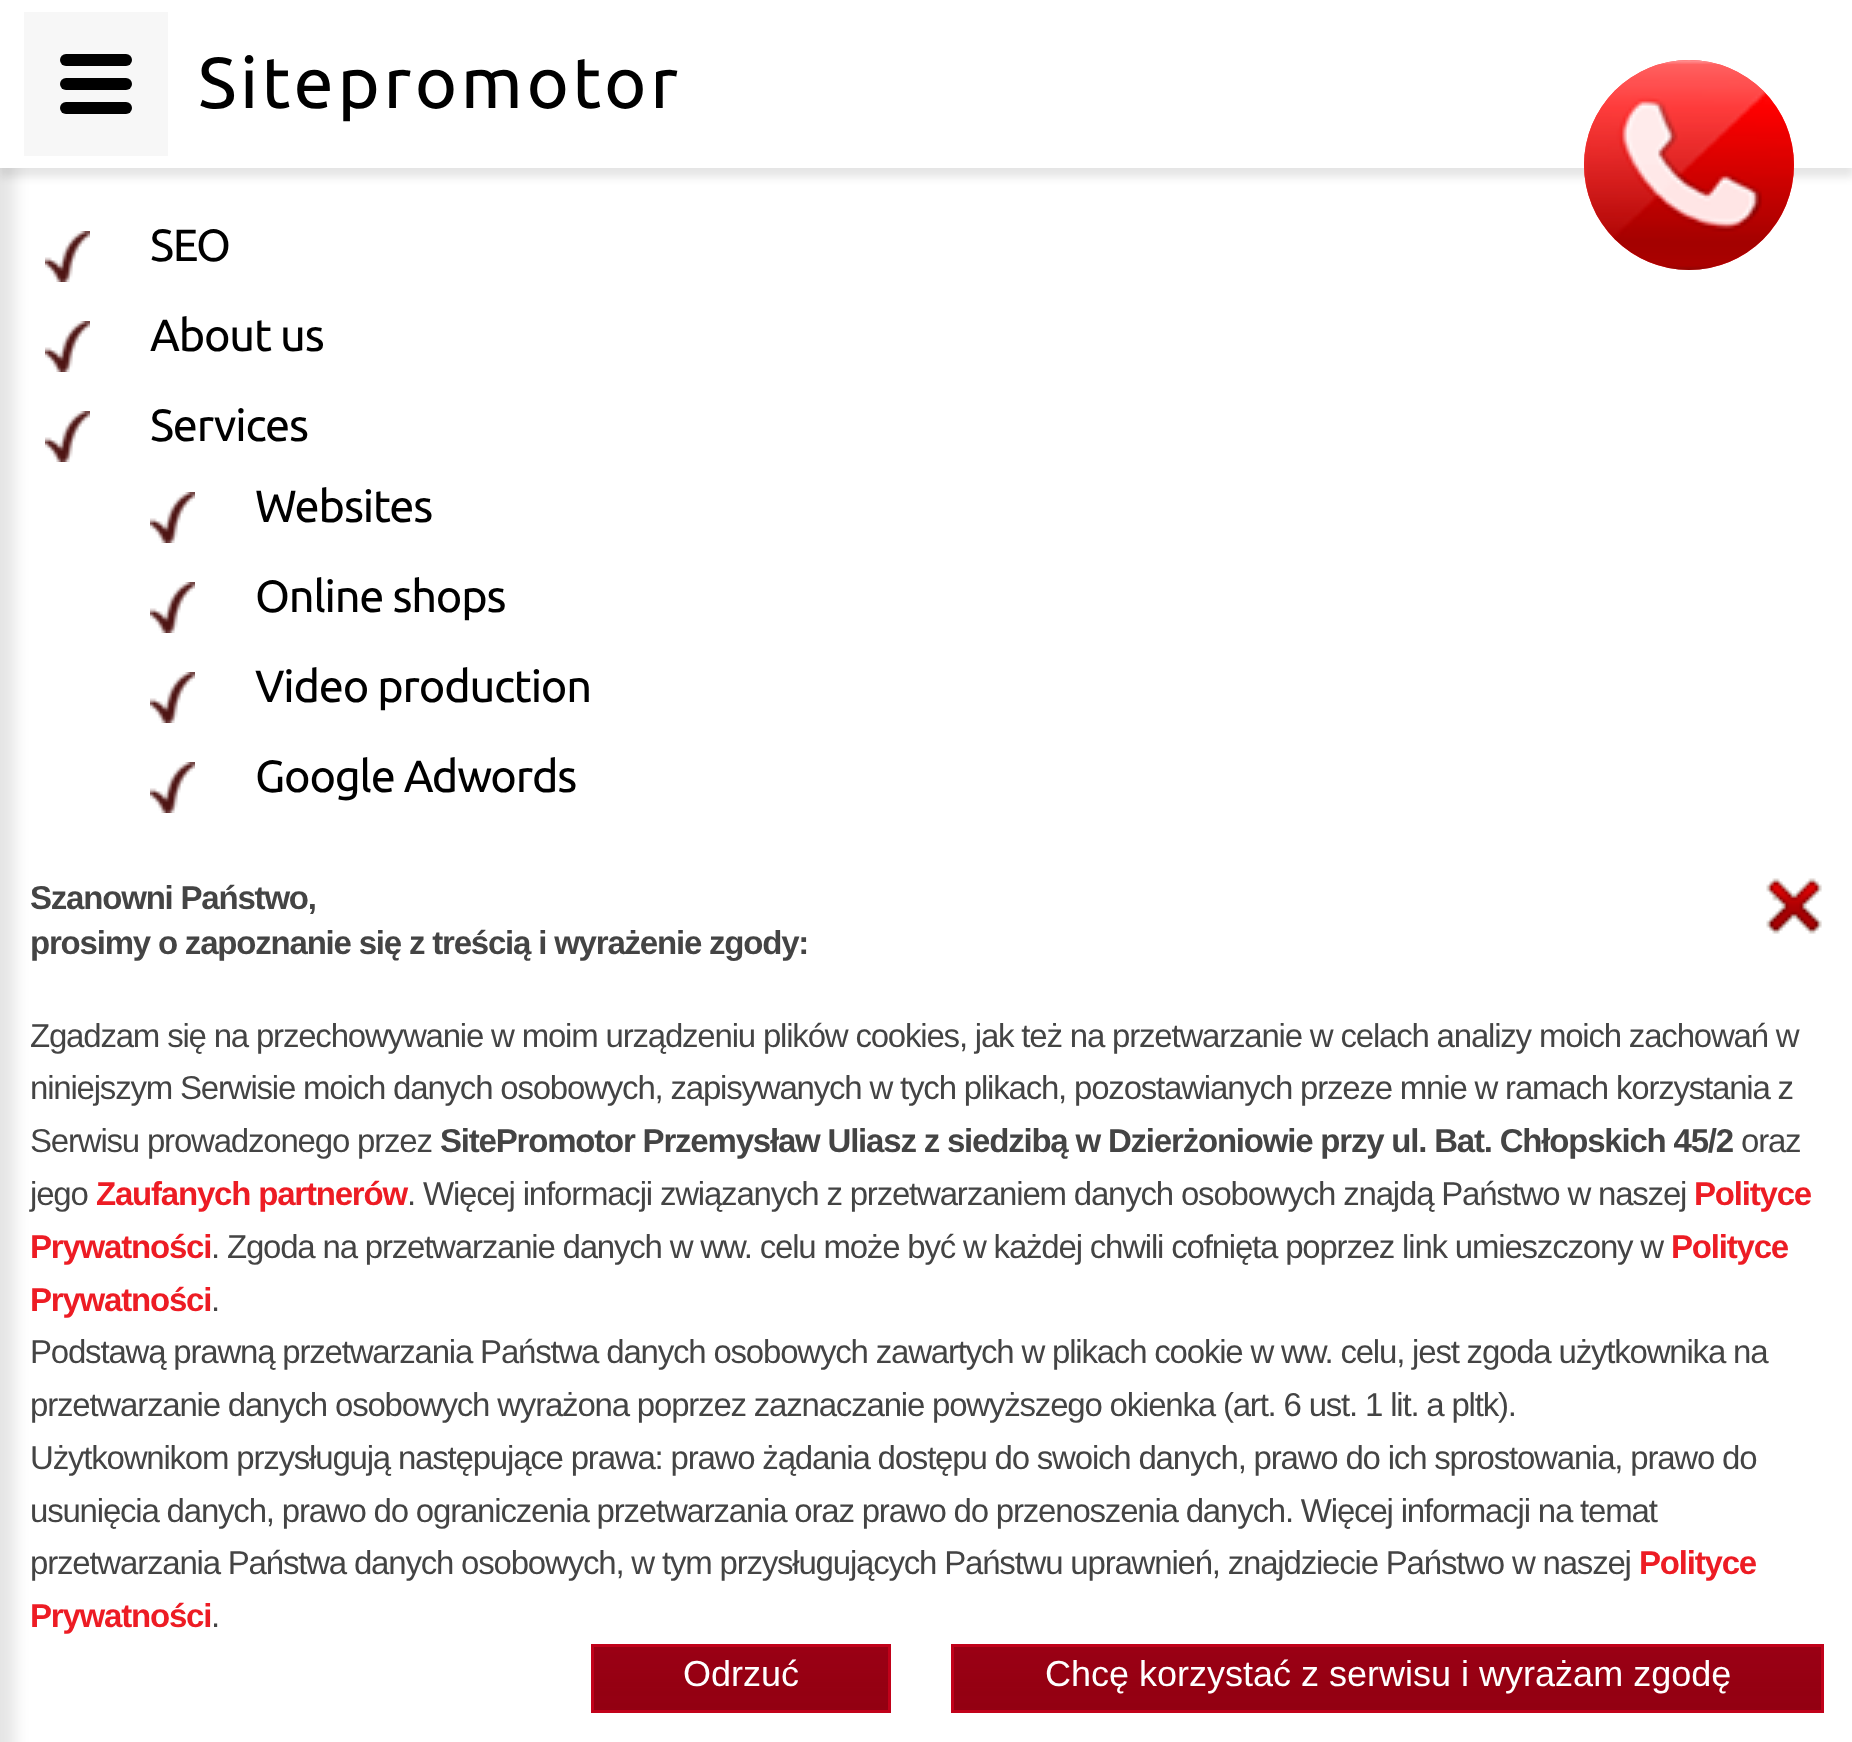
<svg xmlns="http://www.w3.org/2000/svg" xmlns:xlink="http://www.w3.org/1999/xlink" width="1852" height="1742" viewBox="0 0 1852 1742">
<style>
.cls-1{font:72px Ubuntu;letter-spacing:3.6px;fill:#000000}
.cls-2{font:45px Ubuntu;letter-spacing:-1.2px;fill:#000000}
.cls-3{font:bold 33px Liberation Sans;letter-spacing:-1.2px;fill:#444444}
.cls-4{font:33px Liberation Sans;letter-spacing:-1.2px;fill:#444444}
.cls-5{font:bold 33px Liberation Sans;letter-spacing:-1.2px;fill:#ed1c24}
.cls-6{font:36px Liberation Sans;fill:#ffffff}
</style>
<rect width="100%" height="100%" fill="#ffffff"/>
<rect fill="#000000" fill-opacity="0.1" filter="blur(7.5px)" x="-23" y="-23" width="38" height="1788"/>
<rect fill="#000000" fill-opacity="0.1" filter="blur(4.5px)" x="0" y="9" width="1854" height="168"/>
<rect fill="#ffffff" x="0" y="0" width="1852" height="168"/>
<rect fill="#f7f7f7" x="24" y="12" width="144" height="144"/>
<rect fill="#000000" x="60" y="78" width="72" height="12" rx="6"/>
<rect fill="#000000" x="60" y="54" width="72" height="12" rx="6"/>
<rect fill="#000000" x="60" y="102" width="72" height="12" rx="6"/>
<circle fill="#ff3e3e" cx="1689" cy="165" r="105"/>
<image xlink:href="image0.png" x="1584" y="60" width="210" height="210"/>
<image xlink:href="image1.png" x="45" y="231" width="45" height="51"/>
<image xlink:href="image1.png" x="45" y="321" width="45" height="51"/>
<image xlink:href="image1.png" x="45" y="411" width="45" height="51"/>
<image xlink:href="image1.png" x="150" y="492" width="45" height="51"/>
<image xlink:href="image1.png" x="150" y="582" width="45" height="51"/>
<image xlink:href="image1.png" x="150" y="672" width="45" height="51"/>
<image xlink:href="image1.png" x="150" y="762" width="45" height="51"/>
<image xlink:href="image2.png" x="1766" y="878" width="56" height="56"/>
<image xlink:href="image3.png" x="594" y="1647" width="294" height="63"/>
<rect fill="none" stroke="#c1011a" stroke-width="3" x="592.5" y="1645.5" width="297" height="66"/>
<image xlink:href="image4.png" x="954" y="1647" width="867" height="63"/>
<rect fill="none" stroke="#c1011a" stroke-width="3" x="952.5" y="1645.5" width="870" height="66"/>
<text class="cls-1" x="198" y="108">Sitepromotor</text>
<text class="cls-2" x="150" y="261">SEO</text>
<text class="cls-2" x="150" y="351">About us</text>
<text class="cls-2" x="150" y="441">Services</text>
<text class="cls-2" x="255" y="522">Websites</text>
<text class="cls-2" x="255" y="612">Online shops</text>
<text class="cls-2" x="255" y="702">Video production</text>
<text class="cls-2" x="255" y="792">Google Adwords</text>
<text class="cls-3"><tspan x="30" y="909">Szanowni Państwo,</tspan><tspan x="30" y="954">prosimy o zapoznanie się z treścią i wyrażenie zgody:</tspan></text>
<text class="cls-4"><tspan x="30" y="1047">Zgadzam się na przechowywanie w moim urządzeniu plików cookies, jak też na przetwarzanie w celach analizy moich zachowań w</tspan><tspan x="30" y="1099">niniejszym Serwisie moich danych osobowych, zapisywanych w tych plikach, pozostawianych przeze mnie w ramach korzystania z</tspan><tspan x="30" y="1152">Serwisu prowadzonego przez</tspan></text>
<text class="cls-3" x="440" y="1152">SitePromotor Przemysław Uliasz z siedzibą w Dzierżoniowie przy ul. Bat. Chłopskich 45/2</text>
<text class="cls-4" x="1741" y="1152">oraz</text>
<text class="cls-4" x="30" y="1205">jego</text>
<text class="cls-5" x="96" y="1205">Zaufanych partnerów</text>
<text class="cls-4" x="407" y="1205">. Więcej informacji związanych z przetwarzaniem danych osobowych znajdą Państwo w naszej</text>
<text class="cls-5" x="1694" y="1205">Polityce</text>
<text class="cls-5" x="30" y="1258">Prywatności</text>
<text class="cls-4" x="211" y="1258">. Zgoda na przetwarzanie danych w ww. celu może być w każdej chwili cofnięta poprzez link umieszczony w</text>
<text class="cls-5" x="1671" y="1258">Polityce</text>
<text class="cls-5" x="30" y="1311">Prywatności</text>
<text class="cls-4" x="211" y="1311">.</text>
<text class="cls-4"><tspan x="30" y="1363">Podstawą prawną przetwarzania Państwa danych osobowych zawartych w plikach cookie w ww. celu, jest zgoda użytkownika na</tspan><tspan x="30" y="1416">przetwarzanie danych osobowych wyrażona poprzez zaznaczanie powyższego okienka (art. 6 ust. 1 lit. a pltk).</tspan><tspan x="30" y="1469">Użytkownikom przysługują następujące prawa: prawo żądania dostępu do swoich danych, prawo do ich sprostowania, prawo do</tspan><tspan x="30" y="1522">usunięcia danych, prawo do ograniczenia przetwarzania oraz prawo do przenoszenia danych. Więcej informacji na temat</tspan><tspan x="30" y="1574">przetwarzania Państwa danych osobowych, w tym przysługujących Państwu uprawnień, znajdziecie Państwo w naszej</tspan></text>
<text class="cls-5" x="1639" y="1574">Polityce</text>
<text class="cls-5" x="30" y="1627">Prywatności</text>
<text class="cls-4" x="211" y="1627">.</text>
<text class="cls-6" x="683" y="1686">Odrzuć</text>
<text class="cls-6" x="1045" y="1686">Chcę korzystać z serwisu i wyrażam zgodę</text>
</svg>
